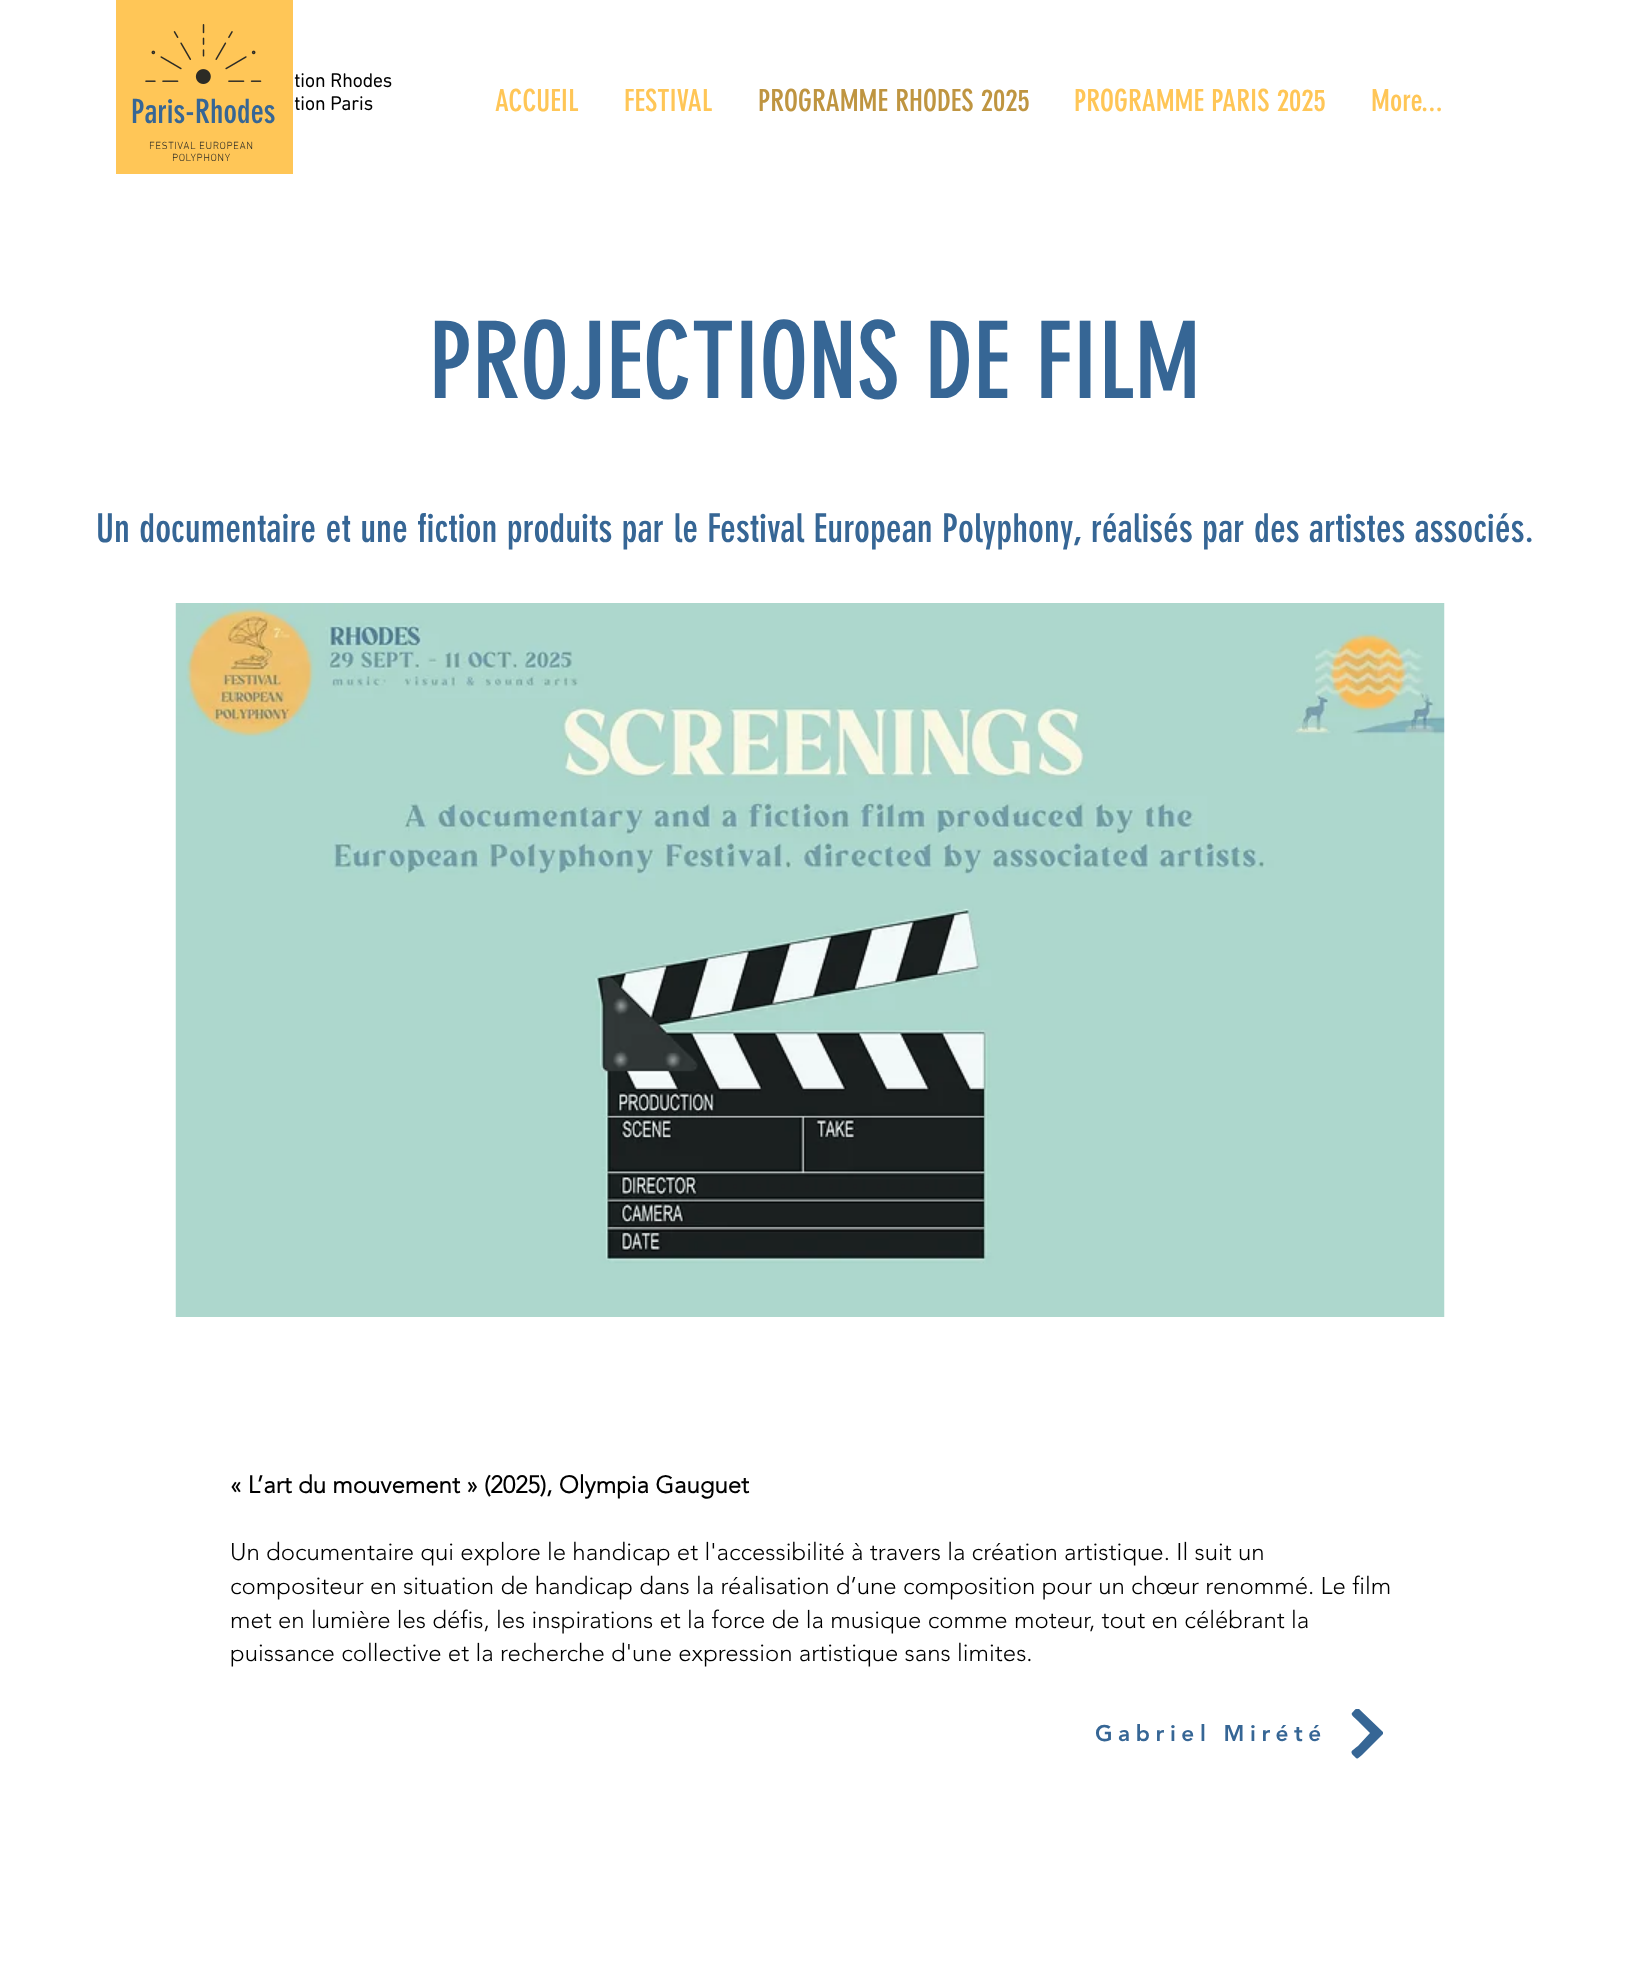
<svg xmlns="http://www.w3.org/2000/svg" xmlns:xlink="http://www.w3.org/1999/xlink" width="1628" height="1986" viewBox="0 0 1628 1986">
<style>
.cls-1{font:bold 19.5px 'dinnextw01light';fill:#000000}
.cls-2{font:30px 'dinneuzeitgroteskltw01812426';fill:#ffc657}
.cls-3{font:30px 'dinneuzeitgroteskltw01812426';fill:#bf9541}
.cls-4{font:33px 'dinneuzeitgroteskltw01812426';fill:#366695}
.cls-5{font:300 10.5px 'dinnextw01light';letter-spacing:0.5px;fill:#2c2b25}
.cls-6{font:105px 'dinneuzeitgroteskltw01812426';fill:#366695}
.cls-7{font:39px 'dinneuzeitgroteskltw01812426';fill:#366695}
.cls-8{font:bold 24px 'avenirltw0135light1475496';fill:#000000}
.cls-9{font:300 24px 'avenirltw0135light1475496';fill:#000000}
.cls-10{font:900 22.5px 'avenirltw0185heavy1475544';letter-spacing:5.6px;fill:#366695}
</style>
<defs>
<clipPath id="clip1"><rect x="1340" y="1709" width="55" height="51"/></clipPath>
</defs>
<rect width="100%" height="100%" fill="#ffffff"/>
<rect fill="#ffc657" x="116" y="0" width="177" height="174"/>
<image xlink:href="image0.png" x="145" y="24" width="117" height="60"/>
<image xlink:href="image1.png" x="175" y="603" width="1270" height="714"/>
<g clip-path="url(#clip1)">
<path fill="#366695" d="M1383 1732L1358 1708C1357 1707 1353 1712 1352 1713C1350 1715 1357 1720 1358 1721L1370 1733L1358 1746C1352 1751 1349 1751 1354 1756C1358 1760 1357 1759 1362 1755L1383 1734C1383 1734 1383 1733 1383 1732Z"/>
</g>
<text class="cls-1"><tspan x="294" y="87">tion Rhodes</tspan><tspan x="294" y="110">tion Paris</tspan></text>
<text class="cls-2" x="495" y="111">ACCUEIL</text>
<text class="cls-2" x="624" y="111">FESTIVAL</text>
<text class="cls-3" x="758" y="111">PROGRAMME RHODES 2025</text>
<text class="cls-2" x="1074" y="111">PROGRAMME PARIS 2025</text>
<text class="cls-2" x="1371" y="111">More...</text>
<text class="cls-4" x="131" y="123">Paris-Rhodes</text>
<text class="cls-5" x="149" y="149">FESTIVAL EUROPEAN</text>
<text class="cls-5" x="172" y="161">POLYPHONY</text>
<text class="cls-6" x="429" y="398">PROJECTIONS DE FILM</text>
<text class="cls-7" x="96" y="542">Un documentaire et une fiction produits par le Festival European Polyphony, réalisés par des artistes associés.</text>
<text class="cls-8" x="230" y="1493">« L’art du mouvement » (2025), Olympia Gauguet</text>
<text class="cls-9"><tspan x="230" y="1560">Un documentaire qui explore le handicap et l'accessibilité à travers la création artistique. Il suit un</tspan><tspan x="230" y="1594">compositeur en situation de handicap dans la réalisation d’une composition pour un chœur renommé. Le film</tspan><tspan x="230" y="1628">met en lumière les défis, les inspirations et la force de la musique comme moteur, tout en célébrant la</tspan><tspan x="230" y="1661">puissance collective et la recherche d'une expression artistique sans limites.</tspan></text>
<text class="cls-10" x="1095" y="1741">Gabriel Mirété</text>
</svg>
